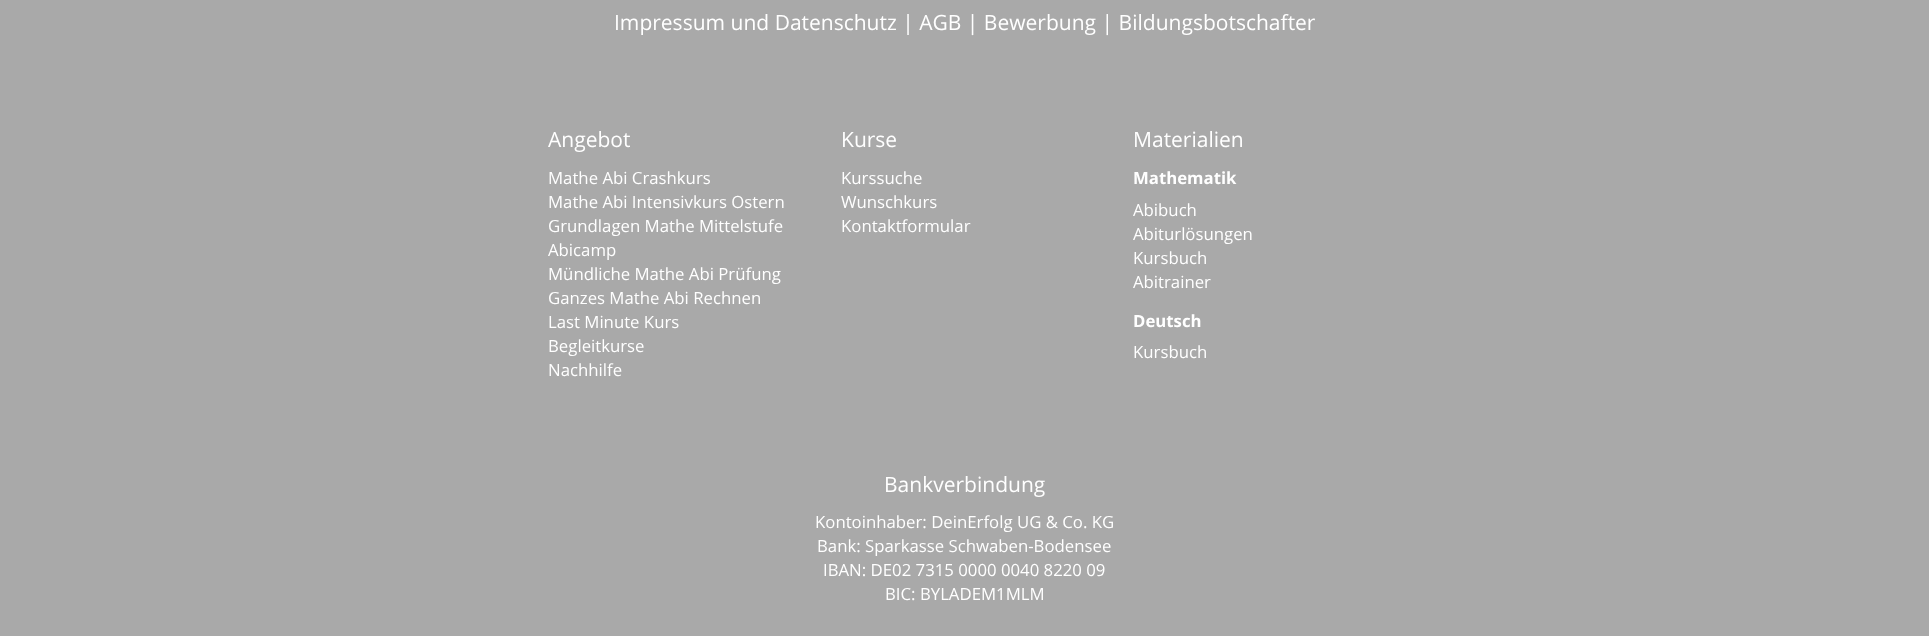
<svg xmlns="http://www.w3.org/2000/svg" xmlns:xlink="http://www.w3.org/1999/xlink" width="1929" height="636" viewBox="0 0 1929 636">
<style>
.cls-1{font:21px Open Sans;fill:#ffffff}
.cls-2{font:16.75px Open Sans;fill:#ffffff}
.cls-3{font:bold 16.75px Open Sans;fill:#ffffff}
</style>
<rect width="100%" height="100%" fill="#a9a9a9"/>
<text class="cls-1" x="614" y="30">Impressum und Datenschutz | AGB | Bewerbung | Bildungsbotschafter</text>
<text class="cls-1" x="548" y="147">Angebot</text>
<text class="cls-2"><tspan x="548" y="184">Mathe Abi Crashkurs</tspan><tspan x="548" y="208">Mathe Abi Intensivkurs Ostern</tspan><tspan x="548" y="232">Grundlagen Mathe Mittelstufe</tspan><tspan x="548" y="256">Abicamp</tspan><tspan x="548" y="280">Mündliche Mathe Abi Prüfung</tspan><tspan x="548" y="304">Ganzes Mathe Abi Rechnen</tspan><tspan x="548" y="328">Last Minute Kurs</tspan><tspan x="548" y="352">Begleitkurse</tspan><tspan x="548" y="376">Nachhilfe</tspan></text>
<text class="cls-1" x="841" y="147">Kurse</text>
<text class="cls-2"><tspan x="841" y="184">Kurssuche</tspan><tspan x="841" y="208">Wunschkurs</tspan><tspan x="841" y="232">Kontaktformular</tspan></text>
<text class="cls-1" x="1133" y="147">Materialien</text>
<text class="cls-3" x="1133" y="184">Mathematik</text>
<text class="cls-2"><tspan x="1133" y="216">Abibuch</tspan><tspan x="1133" y="240">Abiturlösungen</tspan><tspan x="1133" y="264">Kursbuch</tspan><tspan x="1133" y="288">Abitrainer</tspan></text>
<text class="cls-3" x="1133" y="327">Deutsch</text>
<text class="cls-2" x="1133" y="358">Kursbuch</text>
<text class="cls-1" x="884" y="492">Bankverbindung</text>
<text class="cls-2" x="815" y="528">Kontoinhaber: DeinErfolg UG &amp; Co. KG</text>
<text class="cls-2" x="817" y="552">Bank: Sparkasse Schwaben-Bodensee</text>
<text class="cls-2" x="823" y="576">IBAN: DE02 7315 0000 0040 8220 09</text>
<text class="cls-2" x="885" y="600">BIC: BYLADEM1MLM</text>
</svg>
